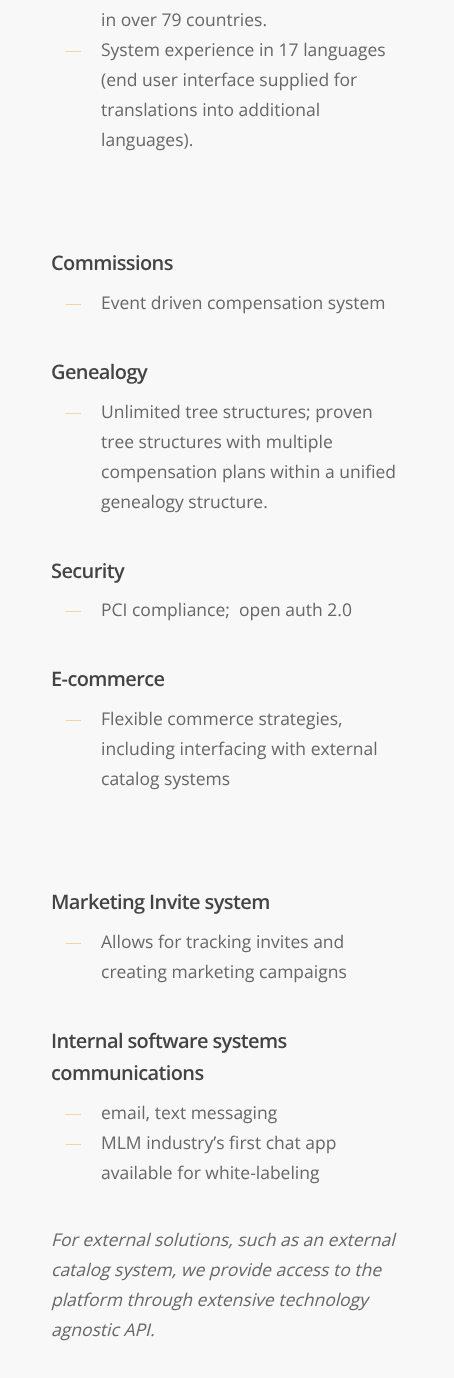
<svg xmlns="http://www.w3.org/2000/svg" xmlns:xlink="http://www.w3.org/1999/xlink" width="454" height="1378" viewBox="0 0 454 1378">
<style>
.cls-1{font:17.5px Open Sans;fill:#676767}
.cls-2{font:600 20px Open Sans;letter-spacing:-0.6px;fill:#444444}
.cls-3{font:italic 17.5px Open Sans;fill:#676767}
</style>
<rect width="100%" height="100%" fill="#f8f8f8"/>
<path fill="#fbb03b" d="M65.5 51.5H81V52H65.5Z"/>
<path fill="#fbb03b" d="M65.5 304H81V304.5H65.5Z"/>
<path fill="#fbb03b" d="M65.5 413H81V413.5H65.5Z"/>
<path fill="#fbb03b" d="M65.5 611.5H81V612H65.5Z"/>
<path fill="#fbb03b" d="M65.5 720.5H81V721H65.5Z"/>
<path fill="#fbb03b" d="M65.5 943H81V943.5H65.5Z"/>
<path fill="#fbb03b" d="M65.5 1114H81V1114.5H65.5Z"/>
<path fill="#fbb03b" d="M65.5 1144H81V1144.5H65.5Z"/>
<text class="cls-1"><tspan x="101" y="26">in over 79 countries.</tspan><tspan x="101" y="56">System experience in 17 languages</tspan><tspan x="101" y="86">(end user interface supplied for</tspan><tspan x="101" y="116">translations into additional</tspan><tspan x="101" y="146">languages).</tspan></text>
<text class="cls-2" x="51" y="270">Commissions</text>
<text class="cls-1" x="101" y="309">Event driven compensation system</text>
<text class="cls-2" x="51" y="379">Genealogy</text>
<text class="cls-1"><tspan x="101" y="418">Unlimited tree structures; proven</tspan><tspan x="101" y="448">tree structures with multiple</tspan><tspan x="101" y="478">compensation plans within a unified</tspan><tspan x="101" y="508">genealogy structure.</tspan></text>
<text class="cls-2" x="51" y="578">Security</text>
<text class="cls-1" xml:space="preserve" x="101" y="616">PCI compliance;  open auth 2.0</text>
<text class="cls-2" x="51" y="686">E-commerce</text>
<text class="cls-1"><tspan x="101" y="725">Flexible commerce strategies,</tspan><tspan x="101" y="755">including interfacing with external</tspan><tspan x="101" y="785">catalog systems</tspan></text>
<text class="cls-2" x="51" y="909">Marketing Invite system</text>
<text class="cls-1"><tspan x="101" y="948">Allows for tracking invites and</tspan><tspan x="101" y="978">creating marketing campaigns</tspan></text>
<text class="cls-2"><tspan x="51" y="1048">Internal software systems</tspan><tspan x="51" y="1080">communications</tspan></text>
<text class="cls-1"><tspan x="101" y="1119">email, text messaging</tspan><tspan x="101" y="1149">MLM industry’s first chat app</tspan><tspan x="101" y="1179">available for white-labeling</tspan></text>
<text class="cls-3"><tspan x="51" y="1246">For external solutions, such as an external</tspan><tspan x="51" y="1276">catalog system, we provide access to the</tspan><tspan x="51" y="1306">platform through extensive technology</tspan><tspan x="51" y="1336">agnostic API.</tspan></text>
</svg>
